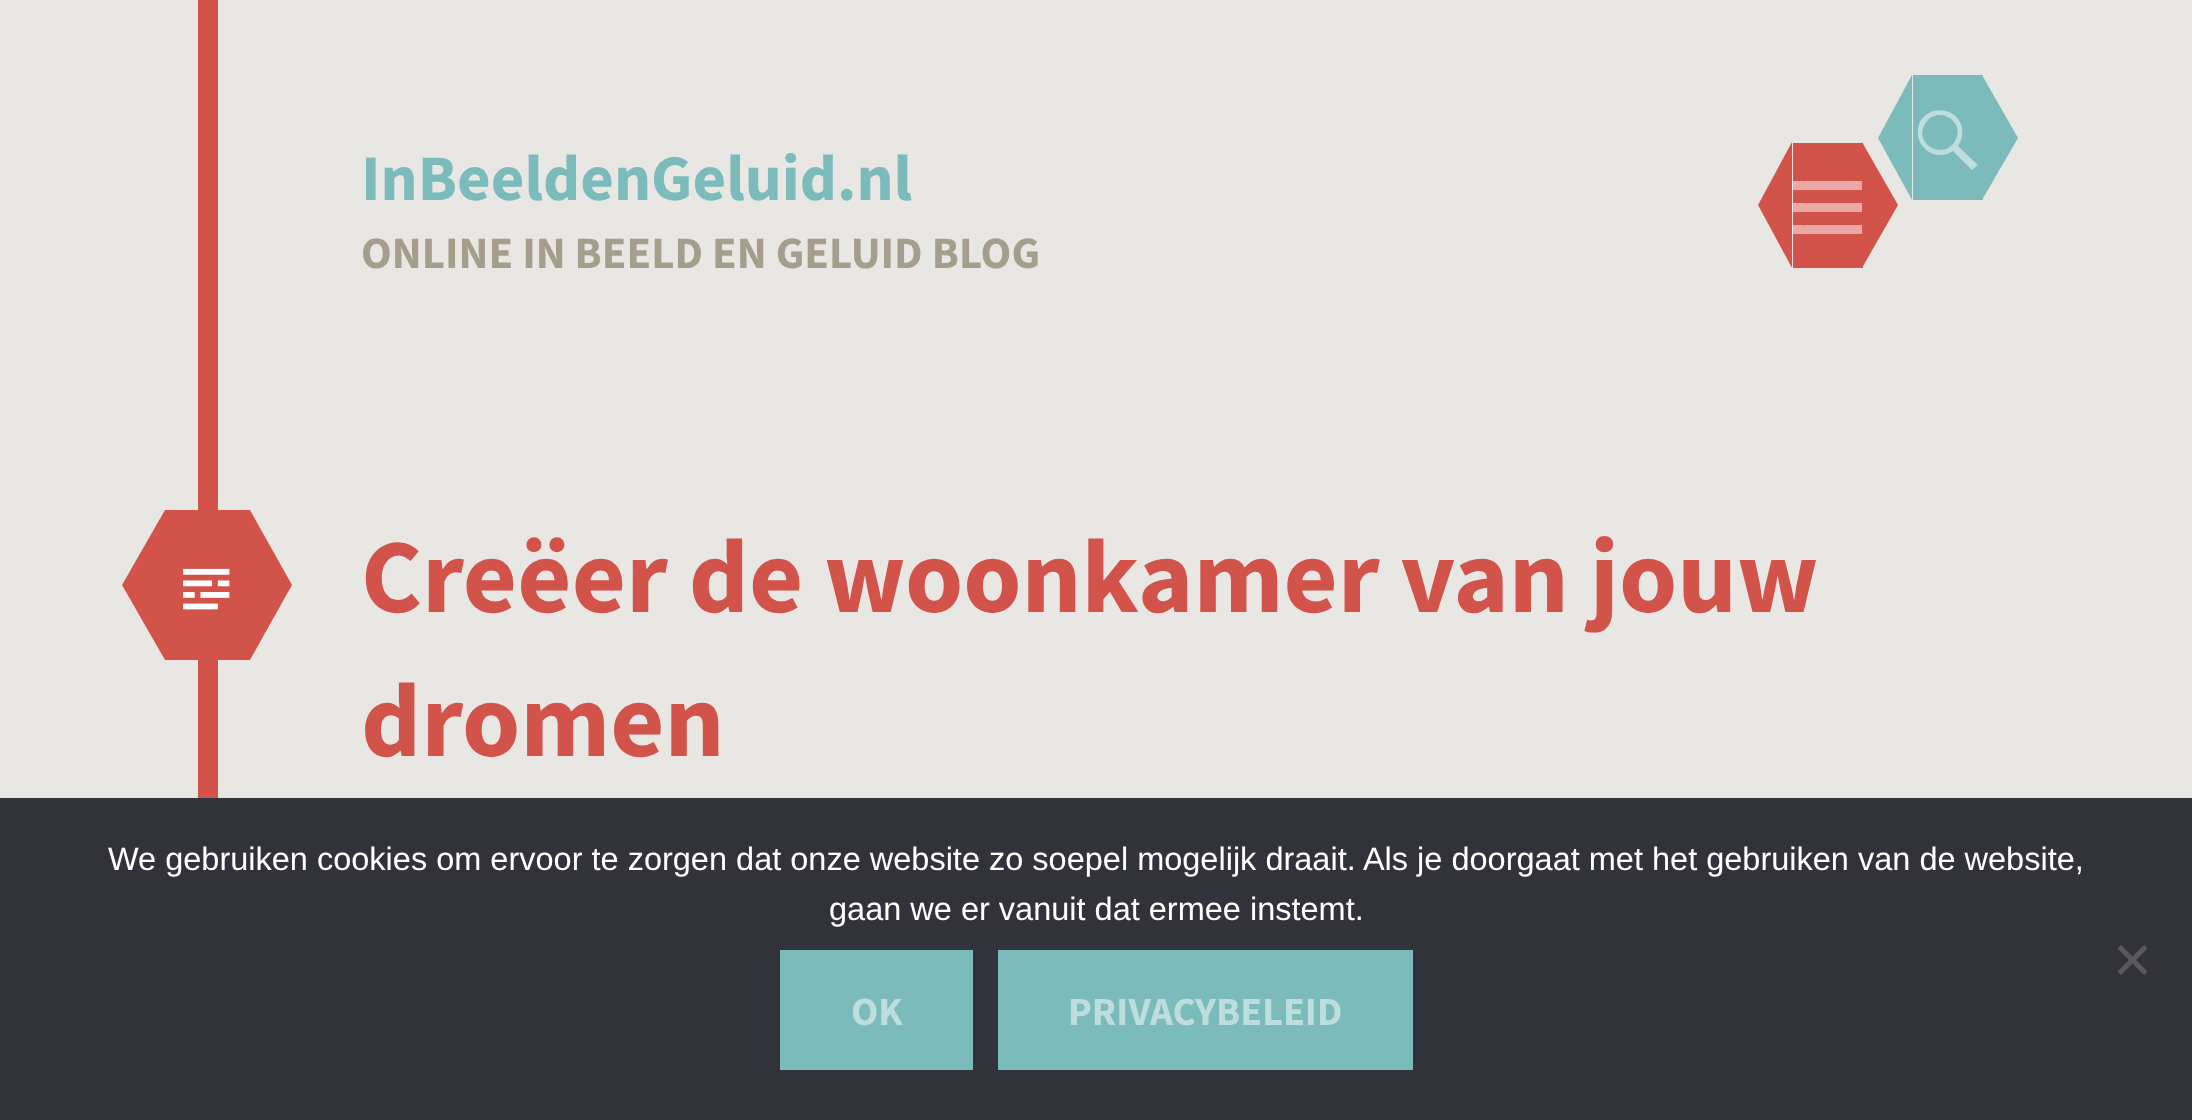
<svg xmlns="http://www.w3.org/2000/svg" xmlns:xlink="http://www.w3.org/1999/xlink" width="2192" height="1120" viewBox="0 0 2192 1120">
<style>
.cls-1{font:bold 65px Source Sans Pro;fill:#7cbbbb}
.cls-2{font:bold 45px Source Sans Pro;fill:#a69e8d}
.cls-3{font:bold 105px Source Sans Pro;fill:#d25349}
.cls-4{font:32.5px Liberation Sans;fill:#ffffff}
.cls-5{font:bold 40px Source Sans Pro;fill:#bedddd}
</style>
<rect width="100%" height="100%" fill="#e9e7e3"/>
<rect fill="#d25349" x="1793" y="143" width="70" height="125"/>
<path fill="#d25349" d="M1792 142V268L1758 205Z"/>
<path fill="#ffffff" fill-opacity="0.5" d="M1792 234V225H1862V234ZM1792 181H1862V190H1792ZM1792 212V203H1862V212Z"/>
<path fill="#d25349" d="M1862 268V142L1898 205Z"/>
<rect fill="#7cbbbb" x="1913" y="75" width="70" height="125"/>
<path fill="#7cbbbb" d="M1912 75V200L1878 138Z"/>
<path fill="#bedddd" d="M1978 165L1972 170L1953 151C1942 159 1926 155 1920 142C1918 138 1917 133 1918 128C1922 105 1956 104 1962 127C1963 133 1962 140 1958 146ZM1925 124C1913 144 1944 161 1955 141C1967 121 1936 104 1925 124Z"/>
<path fill="#7cbbbb" d="M1982 200V75L2018 138Z"/>
<rect fill="#d25349" x="198" y="0" width="20" height="798"/>
<rect fill="#d25349" x="165" y="510" width="85" height="150"/>
<path fill="#d25349" d="M165 510V660L122 585Z"/>
<image xlink:href="image0.png" x="183" y="568" width="47" height="42"/>
<path fill="#d25349" d="M250 660V510L292 585Z"/>
<rect fill="#32323a" x="0" y="798" width="2192" height="322"/>
<path fill="#59595d" d="M2144 945L2147.5 948.5L2121 975L2117.5 971.5Z"/>
<path fill="#59595d" d="M2117.5 948.5L2121 945L2147.5 971.5L2144 975Z"/>
<rect fill="#7cbbbb" x="780" y="950" width="193" height="120"/>
<rect fill="#7cbbbb" x="998" y="950" width="415" height="120"/>
<text class="cls-1" x="361" y="200">InBeeldenGeluid.nl</text>
<text class="cls-2" x="361" y="268">ONLINE IN BEELD EN GELUID BLOG</text>
<text class="cls-3"><tspan x="361" y="612">Creëer de woonkamer van jouw</tspan><tspan x="361" y="756">dromen</tspan></text>
<text class="cls-4" x="108" y="870">We gebruiken cookies om ervoor te zorgen dat onze website zo soepel mogelijk draait. Als je doorgaat met het gebruiken van de website,</text>
<text class="cls-4" x="829" y="920">gaan we er vanuit dat ermee instemt.</text>
<text class="cls-5" x="851" y="1025">OK</text>
<text class="cls-5" x="1068" y="1025">PRIVACYBELEID</text>
</svg>
